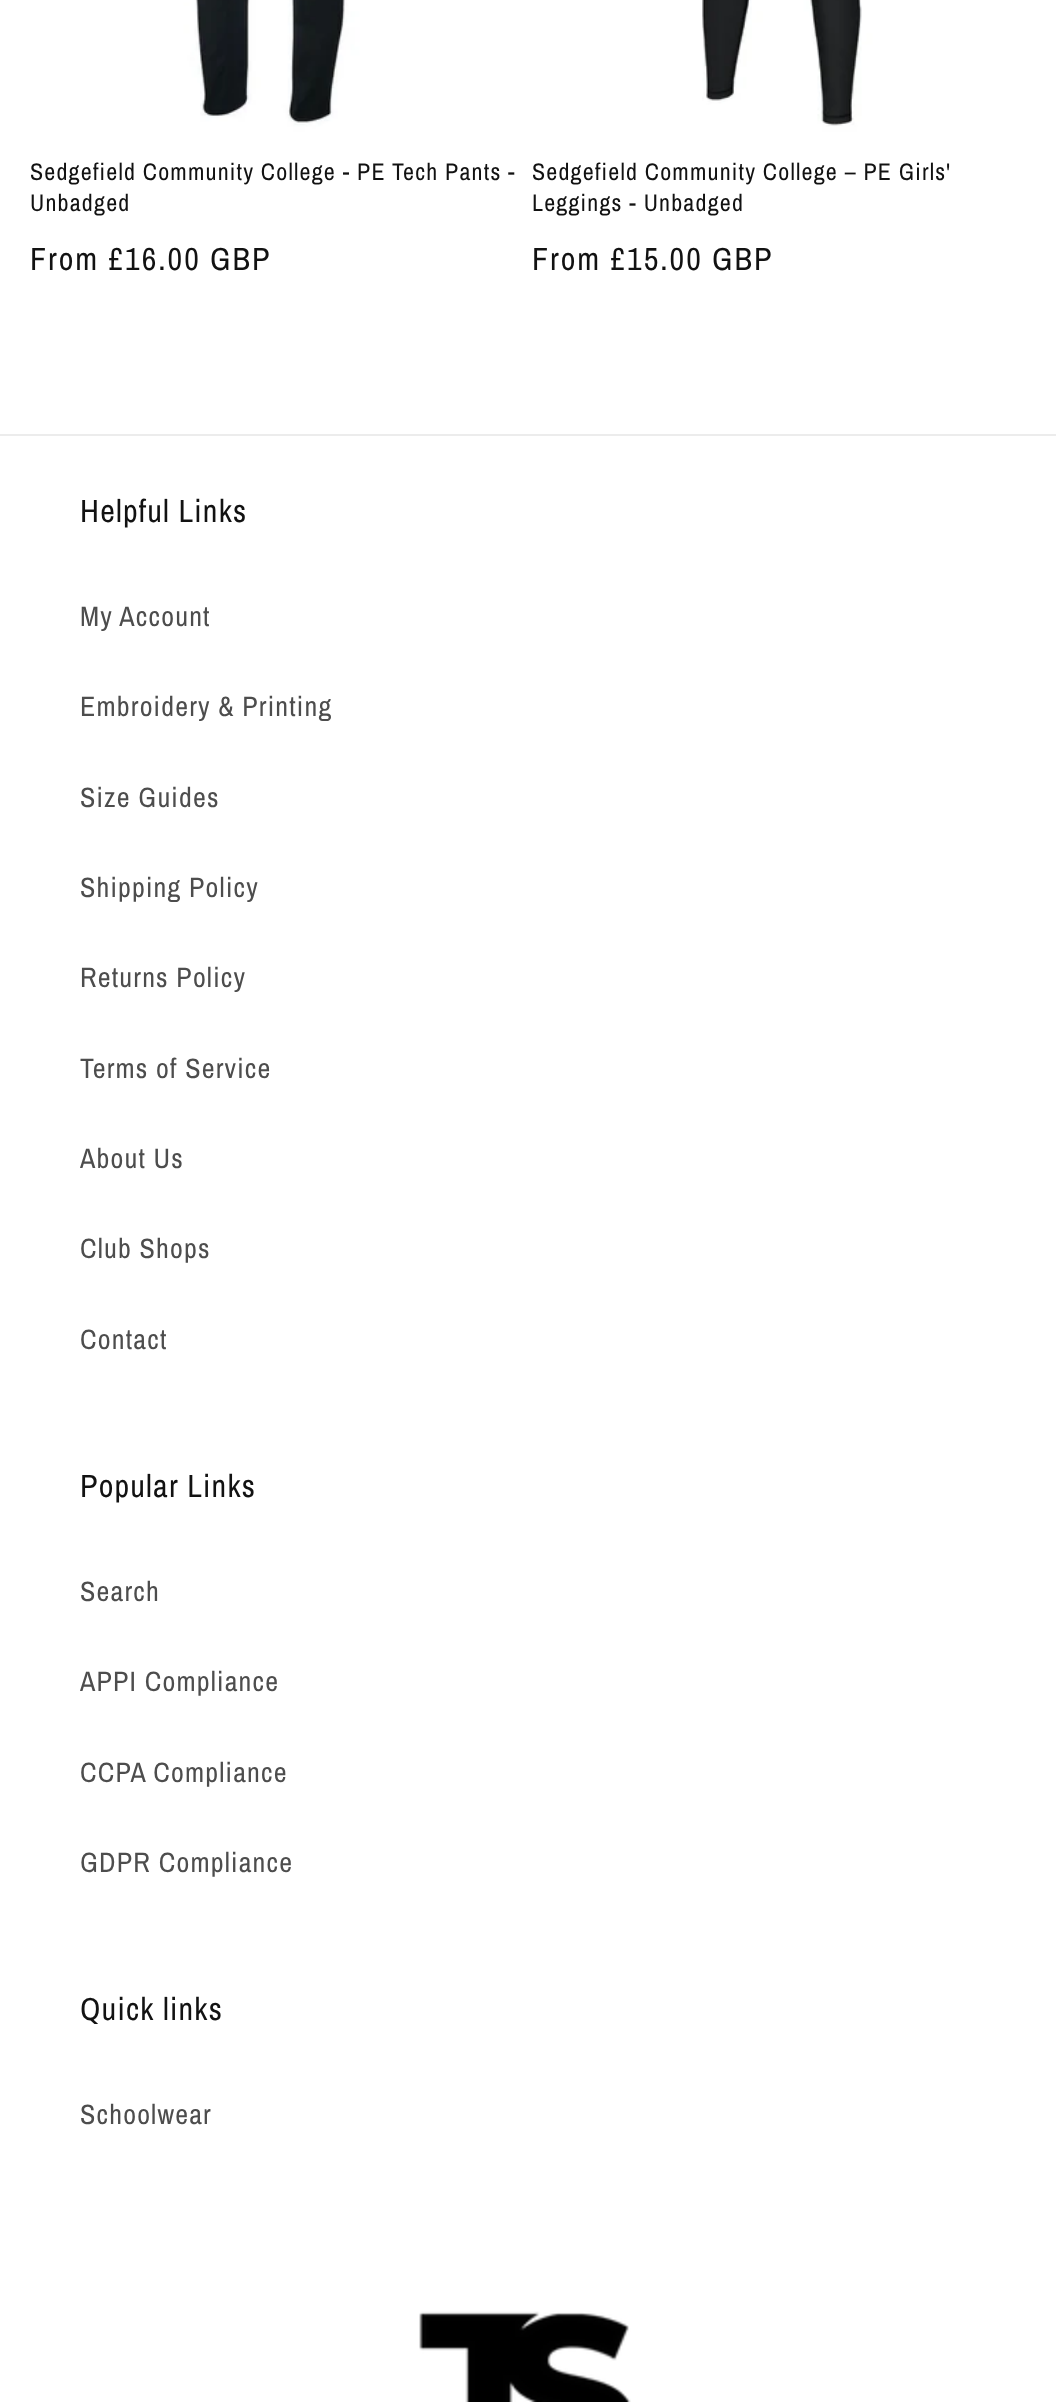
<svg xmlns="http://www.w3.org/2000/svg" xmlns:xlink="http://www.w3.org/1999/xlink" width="1056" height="2402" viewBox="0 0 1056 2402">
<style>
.cls-1{font:24px Archivo Narrow;letter-spacing:1.2px;fill:#121212}
.cls-2{font:32px Archivo Narrow;letter-spacing:2px;fill:#121212}
.cls-3{font:32px Archivo Narrow;letter-spacing:1.2px;fill:#121212}
.cls-4{font:28px Archivo Narrow;letter-spacing:1.2px;fill:#4d4d4d}
</style>
<rect width="100%" height="100%" fill="#ffffff"/>
<image xlink:href="image0.png" x="30" y="0" width="494" height="132"/>
<image xlink:href="image1.png" x="532" y="0" width="494" height="132"/>
<rect fill="#ececec" x="0" y="434" width="1056" height="2"/>
<image xlink:href="image2.png" x="419" y="2311" width="212" height="91"/>
<text class="cls-1"><tspan x="30" y="180">Sedgefield Community College - PE Tech Pants -</tspan><tspan x="30" y="211">Unbadged</tspan></text>
<text class="cls-2" x="30" y="270">From £16.00 GBP</text>
<text class="cls-1"><tspan x="532" y="180">Sedgefield Community College – PE Girls'</tspan><tspan x="532" y="211">Leggings - Unbadged</tspan></text>
<text class="cls-2" x="532" y="270">From £15.00 GBP</text>
<text class="cls-3" x="80" y="522">Helpful Links</text>
<text class="cls-4" x="80" y="626">My Account</text>
<text class="cls-4" x="80" y="716">Embroidery &amp; Printing</text>
<text class="cls-4" x="80" y="807">Size Guides</text>
<text class="cls-4" x="80" y="897">Shipping Policy</text>
<text class="cls-4" x="80" y="987">Returns Policy</text>
<text class="cls-4" x="80" y="1078">Terms of Service</text>
<text class="cls-4" x="80" y="1168">About Us</text>
<text class="cls-4" x="80" y="1258">Club Shops</text>
<text class="cls-4" x="80" y="1349">Contact</text>
<text class="cls-3" x="80" y="1497">Popular Links</text>
<text class="cls-4" x="80" y="1601">Search</text>
<text class="cls-4" x="80" y="1691">APPI Compliance</text>
<text class="cls-4" x="80" y="1782">CCPA Compliance</text>
<text class="cls-4" x="80" y="1872">GDPR Compliance</text>
<text class="cls-3" x="80" y="2020">Quick links</text>
<text class="cls-4" x="80" y="2124">Schoolwear</text>
</svg>
